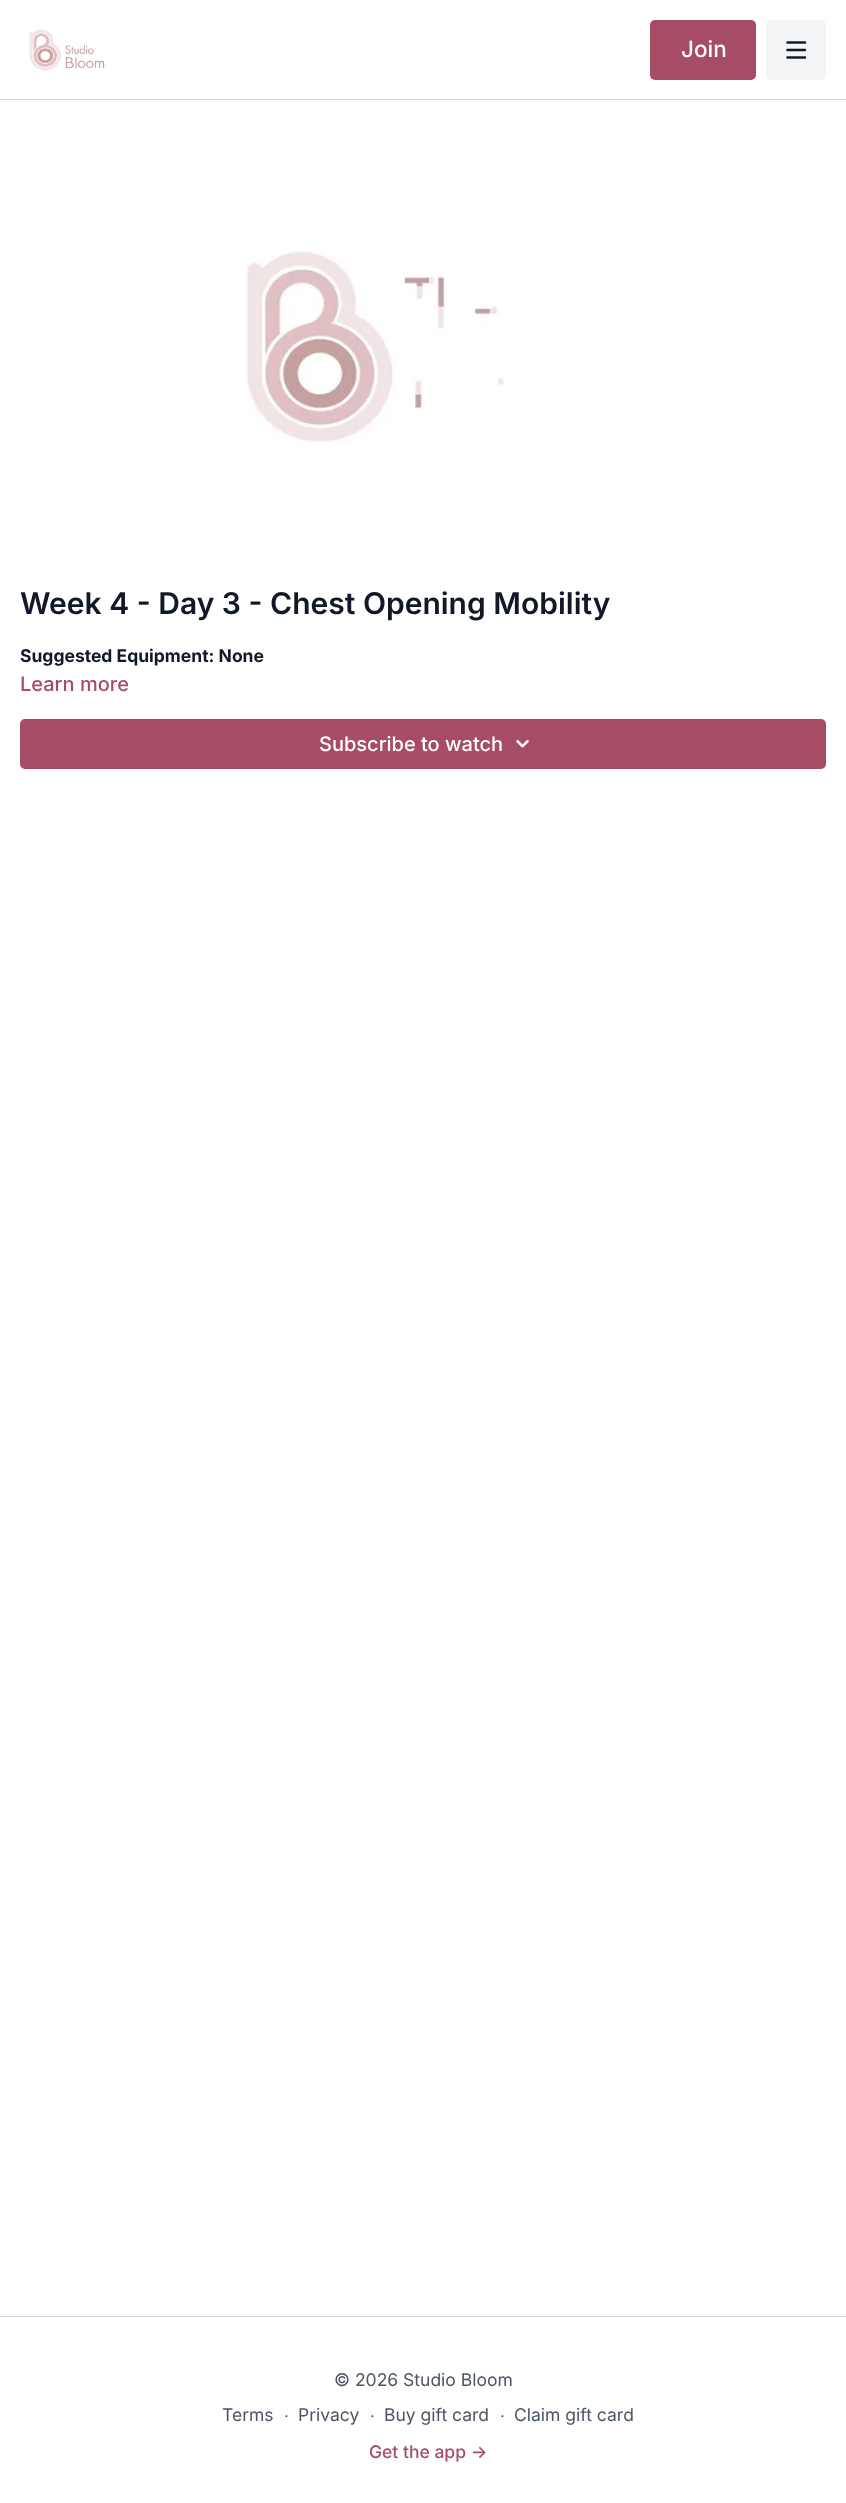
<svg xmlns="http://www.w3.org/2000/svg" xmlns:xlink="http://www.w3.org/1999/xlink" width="846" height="2503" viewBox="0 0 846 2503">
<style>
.cls-1{font:500 22.5px Inter;fill:#ffffff}
.cls-2{font:600 30px Inter;fill:#111827}
.cls-3{font:bold 17.5px Inter;fill:#111827}
.cls-4{font:500 20px Inter;fill:#a64d65}
.cls-5{font:500 20px Inter;fill:#ffffff}
.cls-6{font:17.5px Inter;fill:#4b5563}
.cls-7{font:17.5px Liberation Sans;fill:#4b5563}
.cls-8{font:500 17.5px Inter;fill:#a64d65}
</style>
<rect width="100%" height="100%" fill="#ffffff"/>
<rect fill="#d1d5db" x="0" y="99" width="846" height="1"/>
<image xlink:href="image0.png" x="29" y="29" width="76" height="42"/>
<rect fill="#a64d65" x="650" y="20" width="106" height="60" rx="5"/>
<rect fill="#f3f4f6" x="766" y="20" width="60" height="60" rx="5"/>
<image xlink:href="image1.png" x="786" y="41" width="21" height="18"/>
<image xlink:href="image2.png" x="246" y="251" width="260" height="192"/>
<rect fill="#a64d65" x="20" y="719" width="806" height="50" rx="5"/>
<image xlink:href="image3.png" x="516" y="740" width="13" height="8"/>
<rect fill="#d1d5db" x="0" y="2316" width="846" height="1"/>
<text class="cls-1" x="681" y="57">Join</text>
<text class="cls-2" x="20" y="614">Week 4 - Day 3 - Chest Opening Mobility</text>
<text class="cls-3" x="20" y="662">Suggested Equipment: None</text>
<text class="cls-4" x="20" y="691">Learn more</text>
<text class="cls-5" x="319" y="751">Subscribe to watch</text>
<text class="cls-6" x="334" y="2386">© 2026 Studio Bloom</text>
<text class="cls-6" x="222" y="2421">Terms</text>
<text class="cls-7" x="284" y="2421">∙</text>
<text class="cls-6" x="298" y="2421">Privacy</text>
<text class="cls-7" x="370" y="2421">∙</text>
<text class="cls-6" x="384" y="2421">Buy gift card</text>
<text class="cls-7" x="500" y="2421">∙</text>
<text class="cls-6" x="514" y="2421">Claim gift card</text>
<text class="cls-8" x="369" y="2458">Get the app -&gt;</text>
</svg>
